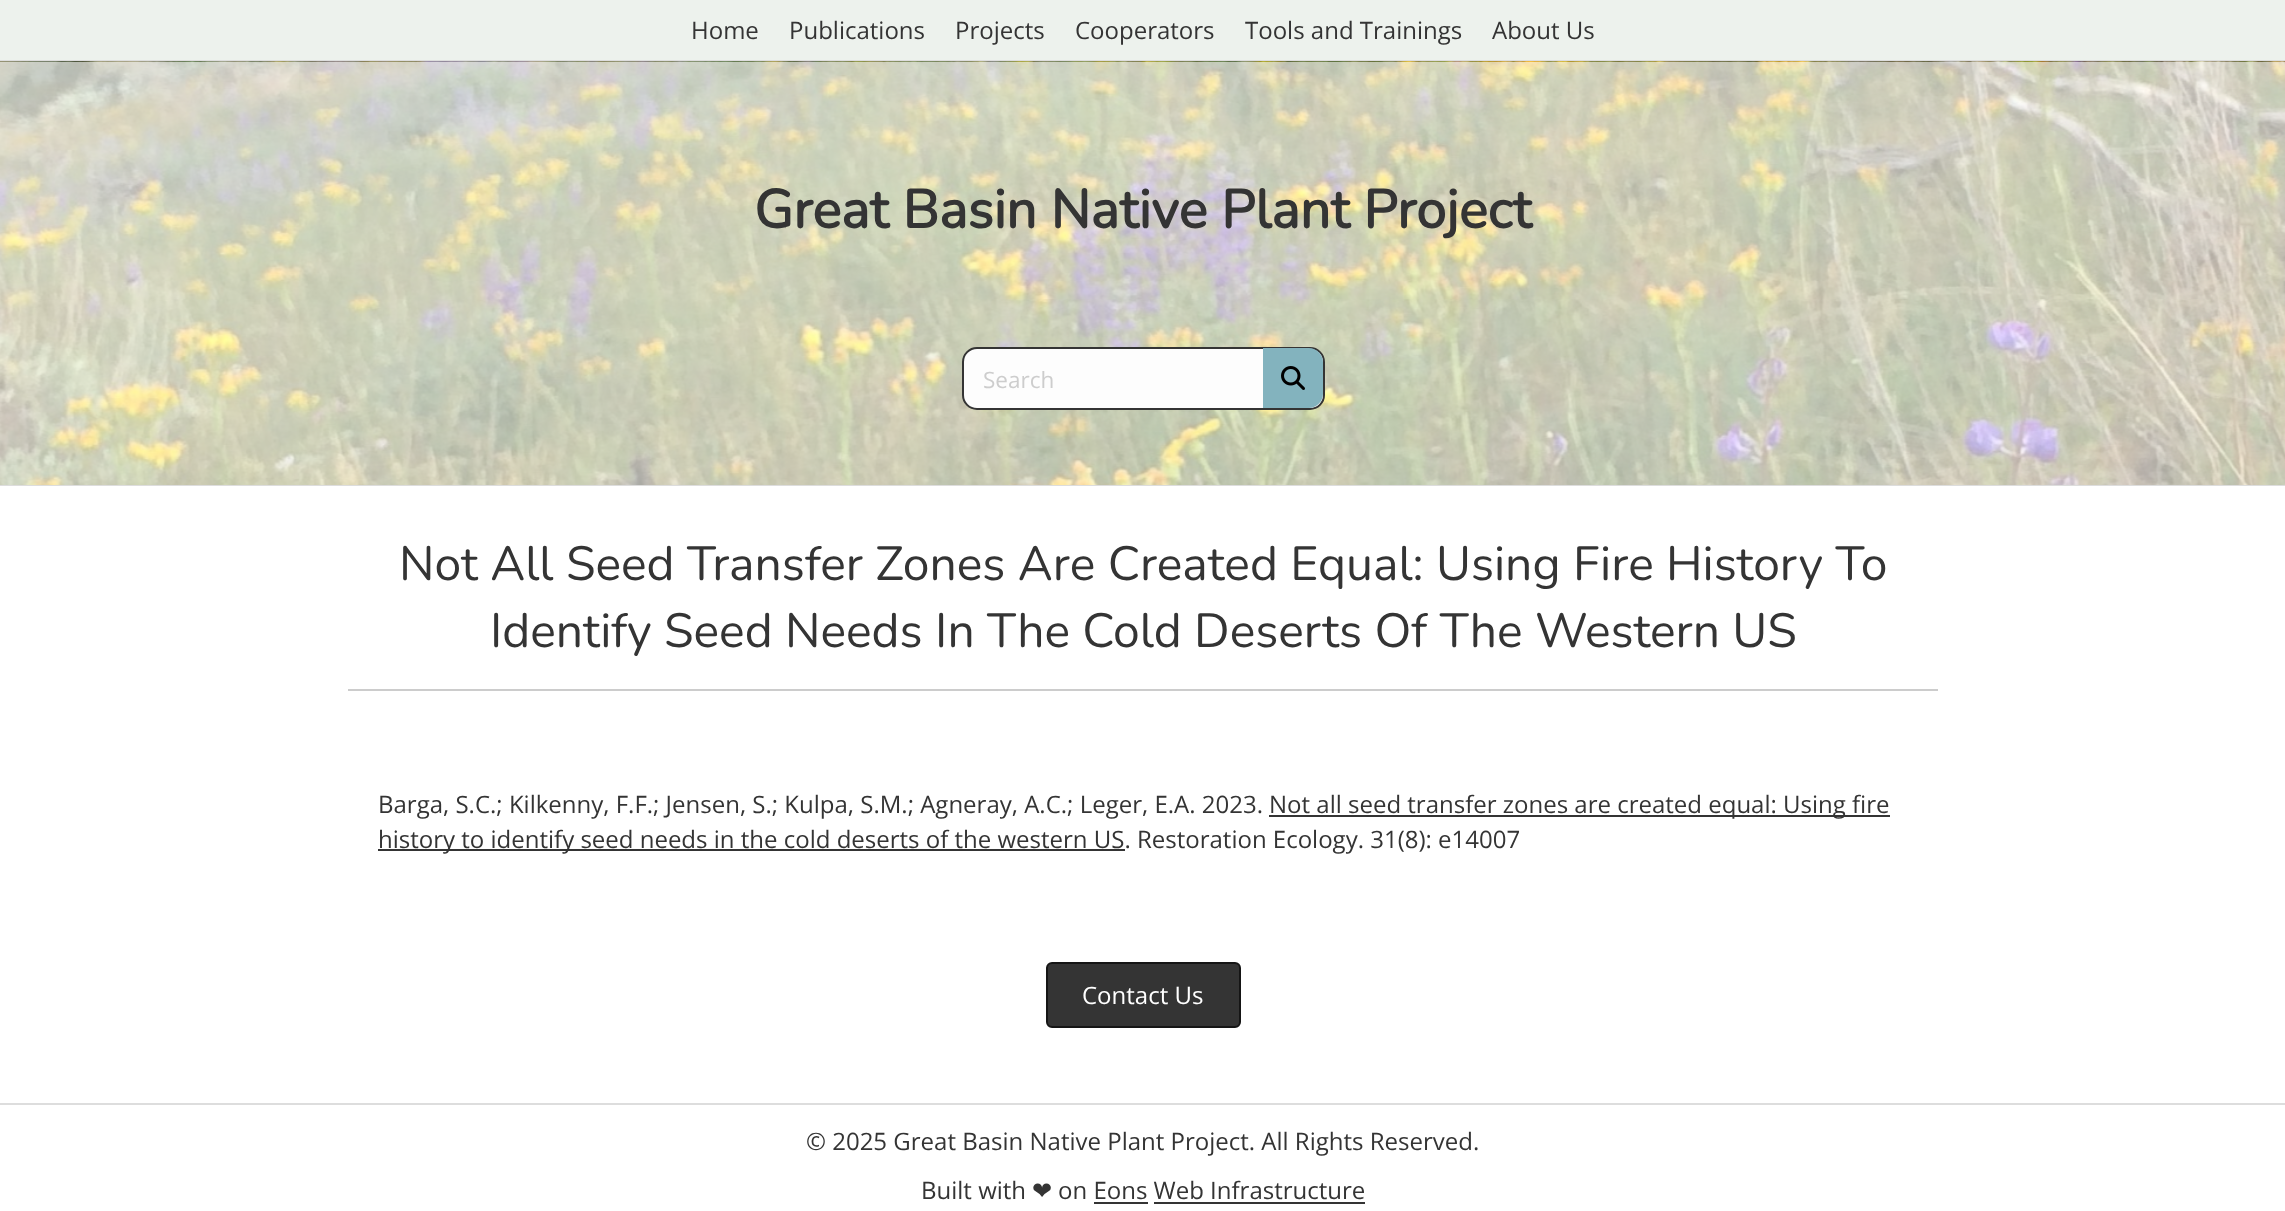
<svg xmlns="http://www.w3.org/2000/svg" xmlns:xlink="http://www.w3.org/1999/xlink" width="2285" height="1211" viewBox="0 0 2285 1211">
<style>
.cls-1{font:24px Open Sans;fill:#343434}
.cls-2{font:bold 54px Nunito;fill:#343434}
.cls-3{font:22.5px Open Sans;fill:#cdcdcd}
.cls-4{font:200 48px Nunito;fill:#343434}
.cls-5{font:24px Open Sans;fill:#ffffff}
.cls-6{font:24px DejaVu Sans;fill:#343434}
</style>
<rect width="100%" height="100%" fill="#ffffff"/>
<rect fill="#edf2ed" x="0" y="0" width="2285" height="60"/>
<rect fill="#dddddd" x="0" y="60" width="2285" height="1"/>
<image xlink:href="image0.png" x="0" y="61" width="2285" height="424"/>
<rect fill="#dddddd" x="0" y="485" width="2285" height="1"/>
<rect fill="#fdfdfd" stroke="#343434" stroke-width="2" x="963" y="348" width="361" height="61" rx="14"/>
<path fill="#83b3be" d="M1263 348H1309C1316.5 348 1323 354.5 1323 362V394C1323 401.5 1316.5 408 1309 408H1263Z"/>
<image xlink:href="image1.png" x="1281" y="366" width="24" height="24"/>
<rect fill="#cccccc" x="348" y="689" width="1590" height="2"/>
<rect fill="#343434" x="1269" y="815" width="621" height="2"/>
<rect fill="#343434" x="378" y="849" width="747" height="2"/>
<rect fill="#343434" stroke="#151515" stroke-width="2" x="1047" y="963" width="193" height="64" rx="5"/>
<rect fill="#dddddd" x="0" y="1103" width="2285" height="2"/>
<rect fill="#343434" x="1094" y="1202" width="54" height="2"/>
<rect fill="#343434" x="1154" y="1202" width="211" height="2"/>
<text class="cls-1" x="691" y="39">Home</text>
<text class="cls-1" x="789" y="39">Publications</text>
<text class="cls-1" x="955" y="39">Projects</text>
<text class="cls-1" x="1075" y="39">Cooperators</text>
<text class="cls-1" x="1245" y="39">Tools and Trainings</text>
<text class="cls-1" x="1492" y="39">About Us</text>
<text class="cls-2" x="754" y="228">Great Basin Native Plant Project</text>
<text class="cls-3" x="983" y="388">Search</text>
<text class="cls-4" x="399" y="580">Not All Seed Transfer Zones Are Created Equal: Using Fire History To</text>
<text class="cls-4" x="490" y="647">Identify Seed Needs In The Cold Deserts Of The Western US</text>
<text class="cls-1" x="378" y="813">Barga, S.C.; Kilkenny, F.F.; Jensen, S.; Kulpa, S.M.; Agneray, A.C.; Leger, E.A. 2023.</text>
<text class="cls-1" x="1269" y="813">Not all seed transfer zones are created equal: Using fire</text>
<text class="cls-1" x="378" y="848">history to identify seed needs in the cold deserts of the western US. Restoration Ecology. 31(8): e14007</text>
<text class="cls-5" x="1082" y="1004">Contact Us</text>
<text class="cls-1" x="806" y="1150">© 2025 Great Basin Native Plant Project. All Rights Reserved.</text>
<text class="cls-1" x="921" y="1199">Built with</text>
<text class="cls-6" x="1032" y="1199">❤︎</text>
<text class="cls-1" x="1058" y="1199">on Eons Web Infrastructure</text>
</svg>
